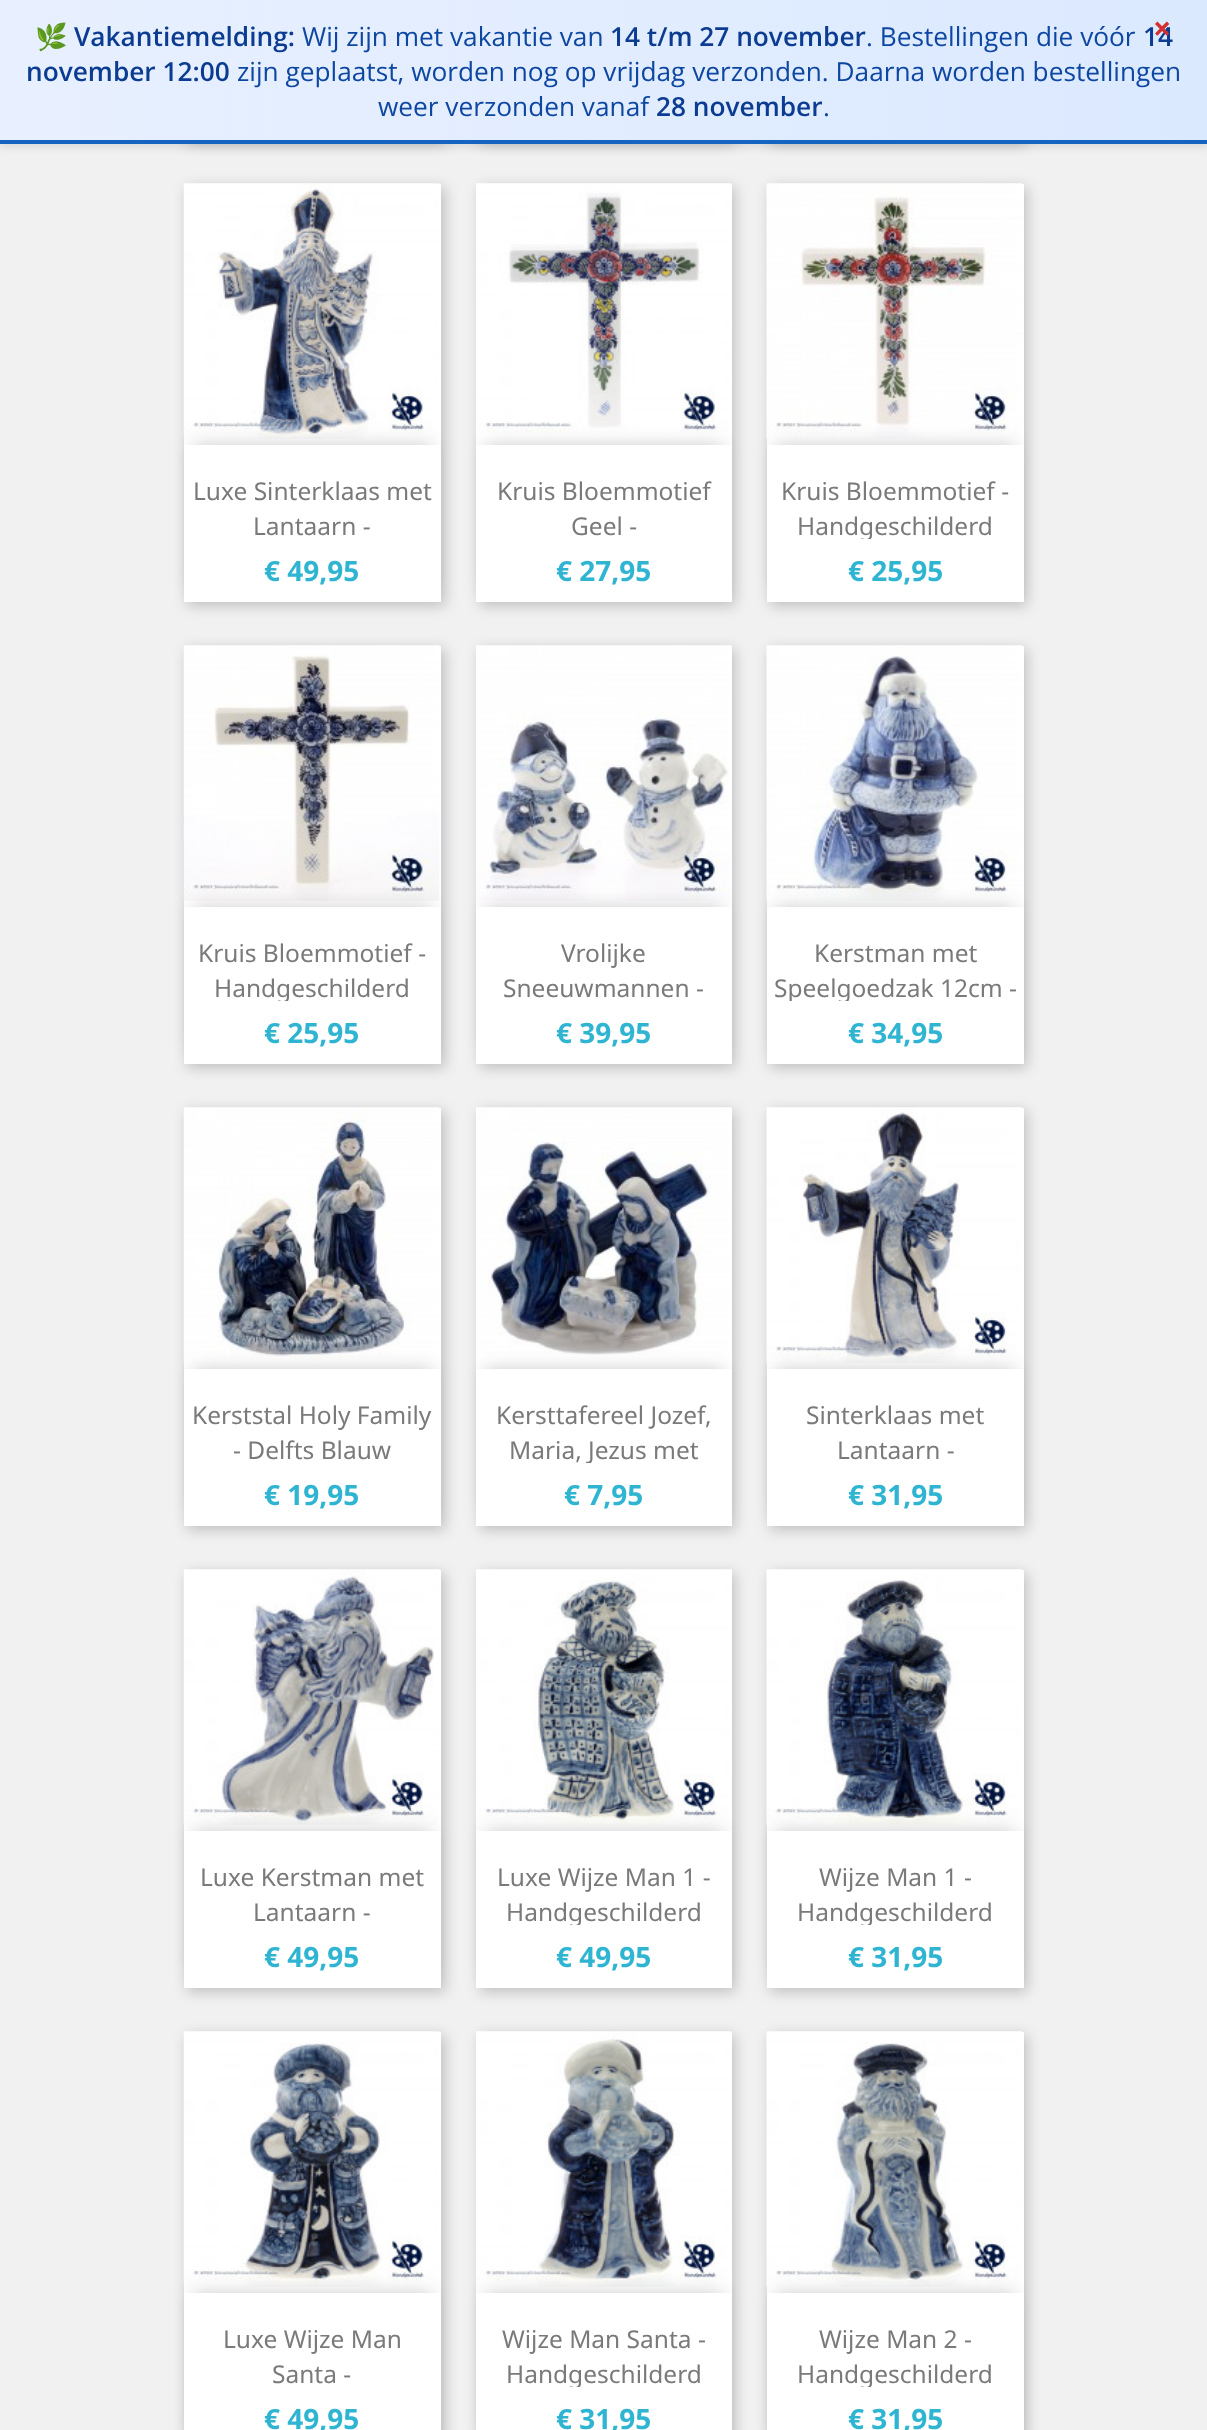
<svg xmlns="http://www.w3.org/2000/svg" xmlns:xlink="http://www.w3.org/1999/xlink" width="1207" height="2430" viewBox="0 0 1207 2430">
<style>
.cls-1{font:26.25px Noto Color Emoji;fill:#0d47a1}
.cls-2{font:600 26.25px Open Sans;fill:#0b3c91}
.cls-3{font:26.25px Open Sans;fill:#0d47a1}
.cls-4{font:bold 32px Open Sans;fill:#d32f2f}
.cls-5{font:24.5px Noto Sans;fill:#7a7a7a}
.cls-6{font:bold 28px Noto Sans;fill:#2fb5d2}
</style>
<defs>
<linearGradient id="g1" gradientUnits="userSpaceOnUse" x1="0" y1="70" x2="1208" y2="70"><stop offset="0" stop-color="#e8f0ff"/><stop offset="1" stop-color="#dbe9ff"/></linearGradient>
<clipPath id="clip1"><path d="M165 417H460V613H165ZM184 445H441V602H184Z" clip-rule="evenodd"/></clipPath>
<clipPath id="clip2"><path d="M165 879H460V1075H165ZM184 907H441V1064H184Z" clip-rule="evenodd"/></clipPath>
<clipPath id="clip3"><path d="M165 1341H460V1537H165ZM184 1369H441V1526H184Z" clip-rule="evenodd"/></clipPath>
<clipPath id="clip4"><path d="M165 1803H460V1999H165ZM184 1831H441V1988H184Z" clip-rule="evenodd"/></clipPath>
<clipPath id="clip5"><path d="M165 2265H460V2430H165ZM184 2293H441V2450H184Z" clip-rule="evenodd"/></clipPath>
<clipPath id="clip6"><rect x="770" y="473" width="250" height="66"/></clipPath>
<clipPath id="clip7"><rect x="187" y="935" width="251" height="66"/></clipPath>
<clipPath id="clip8"><rect x="770" y="935" width="250" height="66"/></clipPath>
<clipPath id="clip9"><rect x="480" y="1397" width="248" height="66"/></clipPath>
<clipPath id="clip10"><rect x="480" y="1859" width="248" height="66"/></clipPath>
<clipPath id="clip11"><rect x="770" y="1859" width="250" height="66"/></clipPath>
<clipPath id="clip12"><rect x="480" y="2321" width="248" height="66"/></clipPath>
<clipPath id="clip13"><rect x="770" y="2321" width="250" height="66"/></clipPath>
</defs>
<rect width="100%" height="100%" fill="#f1f1f1"/>
<rect fill="#000000" fill-opacity="0.1" filter="blur(5px)" x="0" y="4" width="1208" height="143"/>
<rect fill="#000000" fill-opacity="0.2" filter="blur(7px)" x="187" y="-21" width="258" height="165"/>
<rect fill="#000000" fill-opacity="0.2" filter="blur(7px)" x="480" y="-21" width="255" height="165"/>
<rect fill="#000000" fill-opacity="0.2" filter="blur(7px)" x="770" y="-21" width="257" height="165"/>
<rect fill="url(#g1)" x="0" y="0" width="1207" height="140"/>
<rect fill="#1565c0" x="0" y="140" width="1207" height="4"/>
<rect fill="#000000" fill-opacity="0.2" filter="blur(7px)" x="187" y="187" width="258" height="419"/>
<rect fill="#ffffff" x="184" y="184" width="257" height="418"/>
<image xlink:href="image0.png" x="183" y="183" width="257" height="256"/>
<g clip-path="url(#clip1)">
<rect fill="#000000" fill-opacity="0.2" filter="blur(9px)" x="193" y="445" width="239" height="140"/>
</g>
<rect fill="#000000" fill-opacity="0.2" filter="blur(7px)" x="480" y="187" width="255" height="419"/>
<rect fill="#ffffff" x="476" y="184" width="256" height="261"/>
<image xlink:href="image1.png" x="476" y="183" width="256" height="250"/>
<rect fill="#000000" fill-opacity="0.2" filter="blur(9px)" x="485" y="445" width="238" height="140"/>
<rect fill="#ffffff" x="476" y="445" width="256" height="157"/>
<rect fill="#000000" fill-opacity="0.2" filter="blur(7px)" x="770" y="187" width="257" height="419"/>
<rect fill="#ffffff" x="767" y="184" width="257" height="261"/>
<image xlink:href="image2.png" x="766" y="183" width="256" height="256"/>
<rect fill="#000000" fill-opacity="0.2" filter="blur(9px)" x="775" y="445" width="240" height="140"/>
<rect fill="#ffffff" x="767" y="445" width="257" height="157"/>
<rect fill="#000000" fill-opacity="0.2" filter="blur(7px)" x="187" y="649" width="258" height="419"/>
<rect fill="#ffffff" x="184" y="646" width="257" height="418"/>
<image xlink:href="image3.png" x="183" y="645" width="257" height="256"/>
<g clip-path="url(#clip2)">
<rect fill="#000000" fill-opacity="0.2" filter="blur(9px)" x="193" y="907" width="239" height="140"/>
</g>
<rect fill="#000000" fill-opacity="0.2" filter="blur(7px)" x="480" y="649" width="255" height="419"/>
<rect fill="#ffffff" x="476" y="646" width="256" height="261"/>
<image xlink:href="image4.png" x="476" y="645" width="256" height="256"/>
<rect fill="#000000" fill-opacity="0.2" filter="blur(9px)" x="485" y="907" width="238" height="140"/>
<rect fill="#ffffff" x="476" y="907" width="256" height="157"/>
<rect fill="#000000" fill-opacity="0.2" filter="blur(7px)" x="770" y="649" width="257" height="419"/>
<rect fill="#ffffff" x="767" y="646" width="257" height="261"/>
<image xlink:href="image5.png" x="766" y="645" width="256" height="256"/>
<rect fill="#000000" fill-opacity="0.2" filter="blur(9px)" x="775" y="907" width="240" height="140"/>
<rect fill="#ffffff" x="767" y="907" width="257" height="157"/>
<rect fill="#000000" fill-opacity="0.2" filter="blur(7px)" x="187" y="1111" width="258" height="419"/>
<rect fill="#ffffff" x="184" y="1108" width="257" height="418"/>
<image xlink:href="image6.png" x="183" y="1107" width="257" height="256"/>
<g clip-path="url(#clip3)">
<rect fill="#000000" fill-opacity="0.2" filter="blur(9px)" x="193" y="1369" width="239" height="140"/>
</g>
<rect fill="#000000" fill-opacity="0.2" filter="blur(7px)" x="480" y="1111" width="255" height="419"/>
<rect fill="#ffffff" x="476" y="1108" width="256" height="261"/>
<image xlink:href="image7.png" x="476" y="1107" width="256" height="248"/>
<rect fill="#000000" fill-opacity="0.2" filter="blur(9px)" x="485" y="1369" width="238" height="140"/>
<rect fill="#ffffff" x="476" y="1369" width="256" height="157"/>
<rect fill="#000000" fill-opacity="0.2" filter="blur(7px)" x="770" y="1111" width="257" height="419"/>
<rect fill="#ffffff" x="767" y="1108" width="257" height="261"/>
<image xlink:href="image8.png" x="766" y="1107" width="256" height="256"/>
<rect fill="#000000" fill-opacity="0.2" filter="blur(9px)" x="775" y="1369" width="240" height="140"/>
<rect fill="#ffffff" x="767" y="1369" width="257" height="157"/>
<rect fill="#000000" fill-opacity="0.2" filter="blur(7px)" x="187" y="1573" width="258" height="419"/>
<rect fill="#ffffff" x="184" y="1570" width="257" height="418"/>
<image xlink:href="image9.png" x="183" y="1569" width="257" height="256"/>
<g clip-path="url(#clip4)">
<rect fill="#000000" fill-opacity="0.2" filter="blur(9px)" x="193" y="1831" width="239" height="140"/>
</g>
<rect fill="#000000" fill-opacity="0.2" filter="blur(7px)" x="480" y="1573" width="255" height="419"/>
<rect fill="#ffffff" x="476" y="1570" width="256" height="261"/>
<image xlink:href="image10.png" x="476" y="1569" width="256" height="256"/>
<rect fill="#000000" fill-opacity="0.2" filter="blur(9px)" x="485" y="1831" width="238" height="140"/>
<rect fill="#ffffff" x="476" y="1831" width="256" height="157"/>
<rect fill="#000000" fill-opacity="0.2" filter="blur(7px)" x="770" y="1573" width="257" height="419"/>
<rect fill="#ffffff" x="767" y="1570" width="257" height="261"/>
<image xlink:href="image11.png" x="766" y="1569" width="256" height="256"/>
<rect fill="#000000" fill-opacity="0.2" filter="blur(9px)" x="775" y="1831" width="240" height="140"/>
<rect fill="#ffffff" x="767" y="1831" width="257" height="157"/>
<rect fill="#000000" fill-opacity="0.2" filter="blur(7px)" x="187" y="2035" width="258" height="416"/>
<rect fill="#ffffff" x="184" y="2032" width="257" height="398"/>
<image xlink:href="image12.png" x="183" y="2031" width="257" height="256"/>
<g clip-path="url(#clip5)">
<rect fill="#000000" fill-opacity="0.2" filter="blur(9px)" x="193" y="2293" width="239" height="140"/>
</g>
<rect fill="#000000" fill-opacity="0.2" filter="blur(7px)" x="480" y="2035" width="255" height="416"/>
<rect fill="#ffffff" x="476" y="2032" width="256" height="261"/>
<image xlink:href="image13.png" x="476" y="2031" width="256" height="256"/>
<rect fill="#000000" fill-opacity="0.2" filter="blur(9px)" x="485" y="2293" width="238" height="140"/>
<rect fill="#ffffff" x="476" y="2293" width="256" height="137"/>
<rect fill="#000000" fill-opacity="0.2" filter="blur(7px)" x="770" y="2035" width="257" height="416"/>
<rect fill="#ffffff" x="767" y="2032" width="257" height="261"/>
<image xlink:href="image14.png" x="766" y="2031" width="256" height="256"/>
<rect fill="#000000" fill-opacity="0.2" filter="blur(9px)" x="775" y="2293" width="240" height="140"/>
<rect fill="#ffffff" x="767" y="2293" width="257" height="137"/>
<text class="cls-1" x="35" y="46">🌿</text>
<text class="cls-2" x="74" y="46">Vakantiemelding:</text>
<text class="cls-3" x="302" y="46">Wij zijn met vakantie van</text>
<text class="cls-2" x="610" y="46">14 t/m 27 november</text>
<text class="cls-3" x="866" y="46">. Bestellingen die vóór</text>
<text class="cls-2" x="1143" y="46">14</text>
<text class="cls-4" x="1153" y="40">×</text>
<text class="cls-2" x="26" y="81">november 12:00</text>
<text class="cls-3" x="237" y="81">zijn geplaatst, worden nog op vrijdag verzonden. Daarna worden bestellingen</text>
<text class="cls-3" x="378" y="116">weer verzonden vanaf</text>
<text class="cls-2" x="656" y="116">28 november</text>
<text class="cls-3" x="823" y="116">.</text>
<text class="cls-5" x="193" y="500">Luxe Sinterklaas met</text>
<text class="cls-5" x="253" y="535">Lantaarn -</text>
<text class="cls-6" x="264" y="581">€ 49,95</text>
<text class="cls-5" x="497" y="500">Kruis Bloemmotief</text>
<text class="cls-5" x="571" y="535">Geel -</text>
<text class="cls-6" x="556" y="581">€ 27,95</text>
<text class="cls-5" x="781" y="500">Kruis Bloemmotief -</text>
<g clip-path="url(#clip6)">
<text class="cls-5" x="797" y="535">Handgeschilderd</text>
</g>
<text class="cls-6" x="848" y="581">€ 25,95</text>
<text class="cls-5" x="198" y="962">Kruis Bloemmotief -</text>
<g clip-path="url(#clip7)">
<text class="cls-5" x="214" y="997">Handgeschilderd</text>
</g>
<text class="cls-6" x="264" y="1043">€ 25,95</text>
<text class="cls-5" x="561" y="962">Vrolijke</text>
<text class="cls-5" x="503" y="997">Sneeuwmannen -</text>
<text class="cls-6" x="556" y="1043">€ 39,95</text>
<text class="cls-5" x="814" y="962">Kerstman met</text>
<g clip-path="url(#clip8)">
<text class="cls-5" x="774" y="997">Speelgoedzak 12cm -</text>
</g>
<text class="cls-6" x="848" y="1043">€ 34,95</text>
<text class="cls-5" x="192" y="1424">Kerststal Holy Family</text>
<text class="cls-5" x="233" y="1459">- Delfts Blauw</text>
<text class="cls-6" x="264" y="1505">€ 19,95</text>
<text class="cls-5" x="496" y="1424">Kersttafereel Jozef,</text>
<g clip-path="url(#clip9)">
<text class="cls-5" x="509" y="1459">Maria, Jezus met</text>
</g>
<text class="cls-6" x="564" y="1505">€ 7,95</text>
<text class="cls-5" x="806" y="1424">Sinterklaas met</text>
<text class="cls-5" x="837" y="1459">Lantaarn -</text>
<text class="cls-6" x="848" y="1505">€ 31,95</text>
<text class="cls-5" x="200" y="1886">Luxe Kerstman met</text>
<text class="cls-5" x="253" y="1921">Lantaarn -</text>
<text class="cls-6" x="264" y="1967">€ 49,95</text>
<text class="cls-5" x="497" y="1886">Luxe Wijze Man 1 -</text>
<g clip-path="url(#clip10)">
<text class="cls-5" x="506" y="1921">Handgeschilderd</text>
</g>
<text class="cls-6" x="556" y="1967">€ 49,95</text>
<text class="cls-5" x="819" y="1886">Wijze Man 1 -</text>
<g clip-path="url(#clip11)">
<text class="cls-5" x="797" y="1921">Handgeschilderd</text>
</g>
<text class="cls-6" x="848" y="1967">€ 31,95</text>
<text class="cls-5" x="223" y="2348">Luxe Wijze Man</text>
<text class="cls-5" x="272" y="2383">Santa -</text>
<text class="cls-6" x="264" y="2429">€ 49,95</text>
<text class="cls-5" x="502" y="2348">Wijze Man Santa -</text>
<g clip-path="url(#clip12)">
<text class="cls-5" x="506" y="2383">Handgeschilderd</text>
</g>
<text class="cls-6" x="556" y="2429">€ 31,95</text>
<text class="cls-5" x="819" y="2348">Wijze Man 2 -</text>
<g clip-path="url(#clip13)">
<text class="cls-5" x="797" y="2383">Handgeschilderd</text>
</g>
<text class="cls-6" x="848" y="2429">€ 31,95</text>
</svg>
